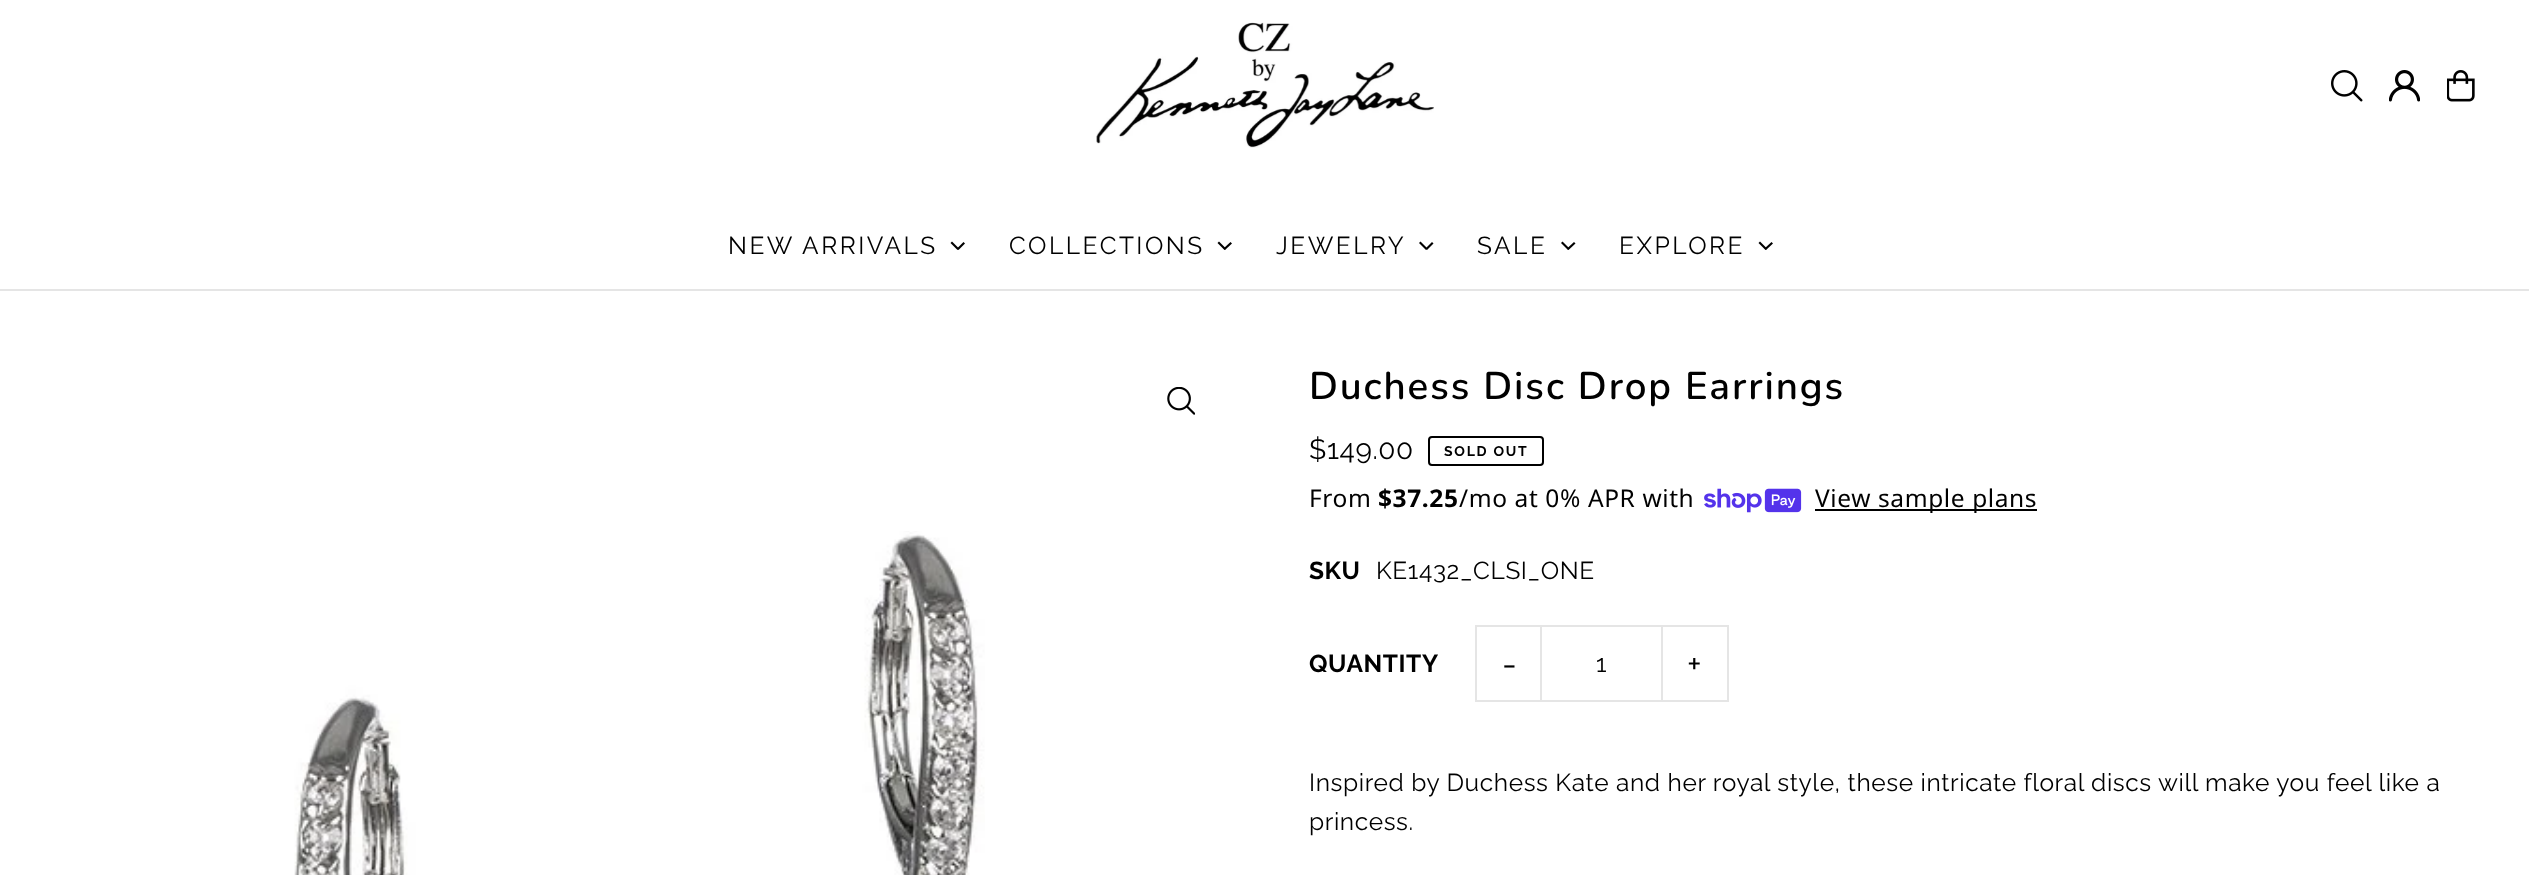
<svg xmlns="http://www.w3.org/2000/svg" xmlns:xlink="http://www.w3.org/1999/xlink" width="2529" height="875" viewBox="0 0 2529 875">
<style>
.cls-1{font:24.5px Raleway;letter-spacing:2.5px;fill:#000000}
.cls-2{font:600 38.5px Nunito;letter-spacing:1.9px;fill:#000000}
.cls-3{font:28px Raleway;letter-spacing:0.6px;fill:#000000}
.cls-4{font:bold 14px Raleway;letter-spacing:1.75px;fill:#000000}
.cls-5{font:24.5px Noto Sans;letter-spacing:0.6px;fill:#000000}
.cls-6{font:bold 24.5px Noto Sans;letter-spacing:0.6px;fill:#000000}
.cls-7{font:bold 24.5px Raleway;letter-spacing:0.6px;fill:#000000}
.cls-8{font:24.5px Raleway;letter-spacing:0.6px;fill:#000000}
.cls-9{font:35px Raleway;letter-spacing:1px;fill:#000000}
</style>
<rect width="100%" height="100%" fill="#ffffff"/>
<rect fill="#e5e5e5" x="0" y="289" width="2529" height="2"/>
<image xlink:href="image0.png" x="1096" y="22" width="338" height="126"/>
<image xlink:href="image1.png" x="2331" y="70" width="32" height="32"/>
<image xlink:href="image2.png" x="2389" y="70" width="31" height="32"/>
<image xlink:href="image3.png" x="2447" y="70" width="28" height="32"/>
<path fill="#000000" d="M963.5 242L965 243.5L958.5 250L957 248.5Z"/>
<path fill="#000000" d="M952 241.5L959 248.5L957.5 250L950.5 243Z"/>
<path fill="#000000" d="M1230.5 242L1232 243.5L1225 250L1223.5 248.5Z"/>
<path fill="#000000" d="M1219 241.5L1226 248.5L1224.5 250L1217.5 243Z"/>
<path fill="#000000" d="M1432 242L1433.5 243.5L1427 250L1425.5 248.5Z"/>
<path fill="#000000" d="M1420.5 241.5L1427.5 248.5L1426 250L1419 243Z"/>
<path fill="#000000" d="M1574 242L1575.5 243.5L1568.5 250L1567 248.5Z"/>
<path fill="#000000" d="M1562.5 241.5L1569.5 248.5L1568 250L1561 243Z"/>
<path fill="#000000" d="M1771.5 242L1773 243.5L1766 250L1764.5 248.5Z"/>
<path fill="#000000" d="M1760 241.5L1767 248.5L1765.5 250L1758.5 243Z"/>
<image xlink:href="image4.png" x="1167" y="387" width="28" height="28"/>
<image xlink:href="image5.png" x="294" y="531" width="691" height="344"/>
<rect fill="none" stroke="#000000" stroke-width="2" x="1429" y="437" width="114" height="28" rx="3"/>
<image xlink:href="image6.png" x="1704" y="488" width="98" height="25"/>
<rect fill="#000000" x="1815" y="509" width="222" height="2"/>
<rect fill="#e5e5e5" x="1475" y="625" width="67" height="2"/>
<rect fill="#e5e5e5" x="1475" y="700" width="67" height="2"/>
<rect fill="#e5e5e5" x="1475" y="625" width="2" height="77"/>
<rect fill="none" stroke="#e5e5e5" stroke-width="2" x="1541" y="626" width="121" height="75"/>
<rect fill="#e5e5e5" x="1663" y="625" width="66" height="2"/>
<rect fill="#e5e5e5" x="1727" y="625" width="2" height="77"/>
<rect fill="#e5e5e5" x="1663" y="700" width="66" height="2"/>
<text class="cls-1" x="728" y="254">NEW ARRIVALS</text>
<text class="cls-1" x="1009" y="254">COLLECTIONS</text>
<text class="cls-1" x="1276" y="254">JEWELRY</text>
<text class="cls-1" x="1477" y="254">SALE</text>
<text class="cls-1" x="1619" y="254">EXPLORE</text>
<text class="cls-2" x="1309" y="399">Duchess Disc Drop Earrings</text>
<text class="cls-3" x="1309" y="459">$149.00</text>
<text class="cls-4" x="1444" y="456">SOLD OUT</text>
<text class="cls-5" x="1309" y="507">From</text>
<text class="cls-6" x="1378" y="507">$37.25</text>
<text class="cls-5" x="1459" y="507">/mo at 0% APR with</text>
<text class="cls-5" x="1815" y="507">View sample plans</text>
<text class="cls-7" x="1309" y="579">SKU</text>
<text class="cls-8" x="1376" y="579">KE1432_CLSI_ONE</text>
<text class="cls-7" x="1309" y="672">QUANTITY</text>
<text class="cls-9" x="1502" y="676">-</text>
<text class="cls-8" x="1596" y="672">1</text>
<text class="cls-9" x="1687" y="676">+</text>
<text class="cls-8"><tspan x="1309" y="791">Inspired by Duchess Kate and her royal style, these intricate floral discs will make you feel like a</tspan><tspan x="1309" y="830">princess.</tspan></text>
</svg>
